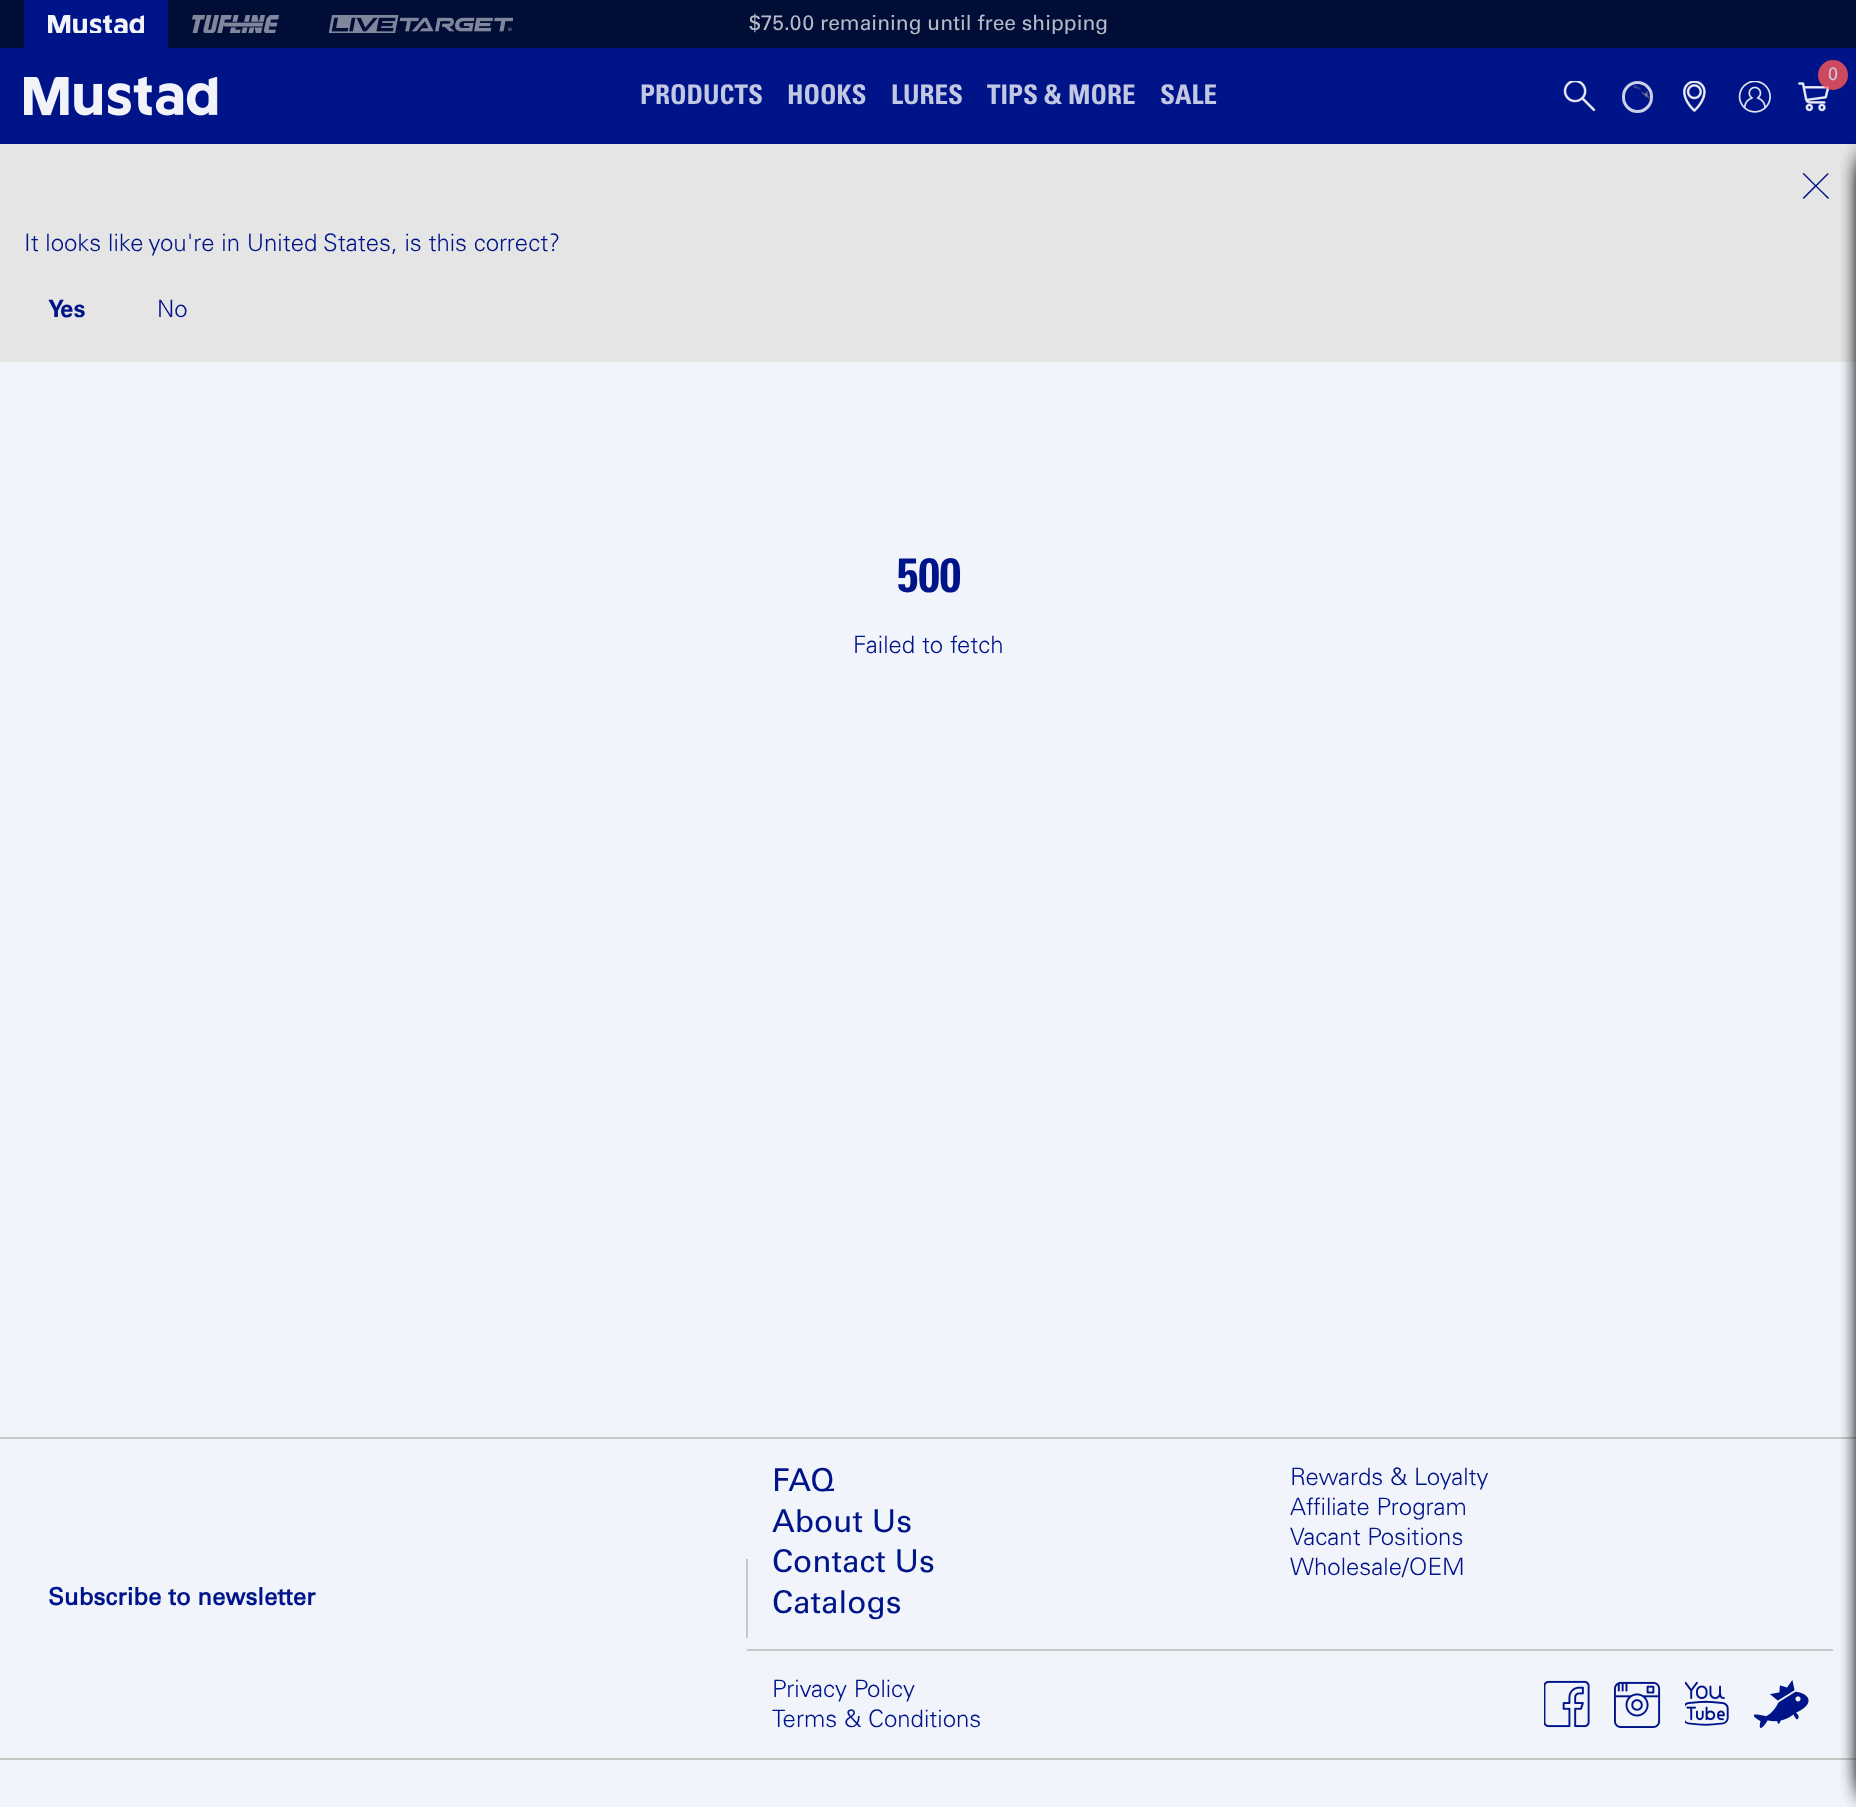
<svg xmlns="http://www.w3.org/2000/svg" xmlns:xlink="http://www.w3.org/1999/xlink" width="1856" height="1807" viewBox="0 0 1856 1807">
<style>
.cls-1{font:21px 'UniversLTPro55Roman';fill:#b5bac6}
.cls-2{font:18px 'UniversLTPro55Roman';fill:#ccc9e0}
.cls-3{font:27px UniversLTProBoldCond;fill:#c2c7e2}
.cls-4{font:24px 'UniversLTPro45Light';fill:#001489}
.cls-5{font:24px 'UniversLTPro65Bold';fill:#001489}
.cls-6{font:48px UniversLTProBoldCond;fill:#001489}
.cls-7{font:bold 24px 'UniversLTPro55Roman';fill:#001489}
.cls-8{font:31.5px 'UniversLTPro55Roman';fill:#001489}
</style>
<rect width="100%" height="100%" fill="#f1f4fb"/>
<rect fill="#000d37" x="0" y="0" width="1856" height="48"/>
<rect fill="#001489" x="24" y="0" width="144" height="48"/>
<image xlink:href="image0.png" x="48" y="15" width="96" height="18"/>
<image xlink:href="image1.png" x="192" y="15" width="88" height="18"/>
<image xlink:href="image2.png" x="329" y="15" width="184" height="18"/>
<rect fill="#001489" x="0" y="48" width="1856" height="96"/>
<image xlink:href="image3.png" x="1798" y="82" width="32" height="30"/>
<circle fill="#ff5656" fill-opacity="0.8" cx="1833" cy="75" r="15"/>
<image xlink:href="image4.png" x="1563" y="81" width="33" height="30"/>
<rect fill="none" stroke="#ccd0e7" stroke-width="3" x="1623.5" y="82.5" width="28" height="29" rx="14"/>
<image xlink:href="image5.png" x="1633" y="85" width="17" height="14"/>
<image xlink:href="image6.png" x="1683" y="81" width="23" height="31"/>
<image xlink:href="image7.png" x="1738" y="81" width="33" height="32"/>
<image xlink:href="image8.png" x="24" y="77" width="194" height="39"/>
<rect fill="#e5e5e5" x="0" y="144" width="1856" height="218"/>
<rect fill="#c7c7c7" x="0" y="1437" width="1856" height="2"/>
<rect fill="#c7c7c7" x="0" y="1758" width="1856" height="2"/>
<rect fill="#c7c7c7" x="747" y="1649" width="1086" height="2"/>
<rect fill="#000000" filter="blur(12px)" x="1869" y="162" width="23" height="1628"/>
<rect fill="#000000" filter="blur(12px)" x="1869" y="162" width="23" height="1628"/>
<rect fill="#000000" filter="blur(12px)" x="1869" y="162" width="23" height="1628"/>
<rect fill="#000000" filter="blur(12px)" x="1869" y="162" width="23" height="1628"/>
<image xlink:href="image9.png" x="1802" y="173" width="27" height="26"/>
<rect fill="#000000" filter="blur(12px)" x="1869" y="162" width="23" height="1628"/>
<rect fill="#c7c7c7" x="746" y="1559" width="2" height="79"/>
<image xlink:href="image10.png" x="1544" y="1680" width="46" height="48"/>
<image xlink:href="image11.png" x="1614" y="1681" width="47" height="47"/>
<image xlink:href="image12.png" x="1685" y="1681" width="44" height="45"/>
<image xlink:href="image13.png" x="1754" y="1680" width="55" height="48"/>
<text class="cls-1" x="749" y="30">$75.00</text>
<text class="cls-1" x="820" y="30">remaining until free shipping</text>
<text class="cls-2" x="1828" y="80">0</text>
<text class="cls-3" x="640" y="104">PRODUCTS</text>
<text class="cls-3" x="787" y="104">HOOKS</text>
<text class="cls-3" x="891" y="104">LURES</text>
<text class="cls-3" x="987" y="104">TIPS &amp; MORE</text>
<text class="cls-3" x="1160" y="104">SALE</text>
<text class="cls-4" x="24" y="251">It looks like you're in United States, is this correct?</text>
<text class="cls-5" x="48" y="317">Yes</text>
<text class="cls-4" x="157" y="317">No</text>
<text class="cls-6" x="897" y="592">500</text>
<text class="cls-4" x="853" y="653">Failed to fetch</text>
<text class="cls-7" x="48" y="1605">Subscribe to newsletter</text>
<text class="cls-8"><tspan x="772" y="1491">FAQ</tspan><tspan x="772" y="1532">About Us</tspan><tspan x="772" y="1572">Contact Us</tspan><tspan x="772" y="1613">Catalogs</tspan></text>
<text class="cls-4"><tspan x="1290" y="1485">Rewards &amp; Loyalty</tspan><tspan x="1290" y="1515">Affiliate Program</tspan><tspan x="1290" y="1545">Vacant Positions</tspan><tspan x="1290" y="1575">Wholesale/OEM</tspan></text>
<text class="cls-4"><tspan x="772" y="1697">Privacy Policy</tspan><tspan x="772" y="1727">Terms &amp; Conditions</tspan></text>
</svg>
